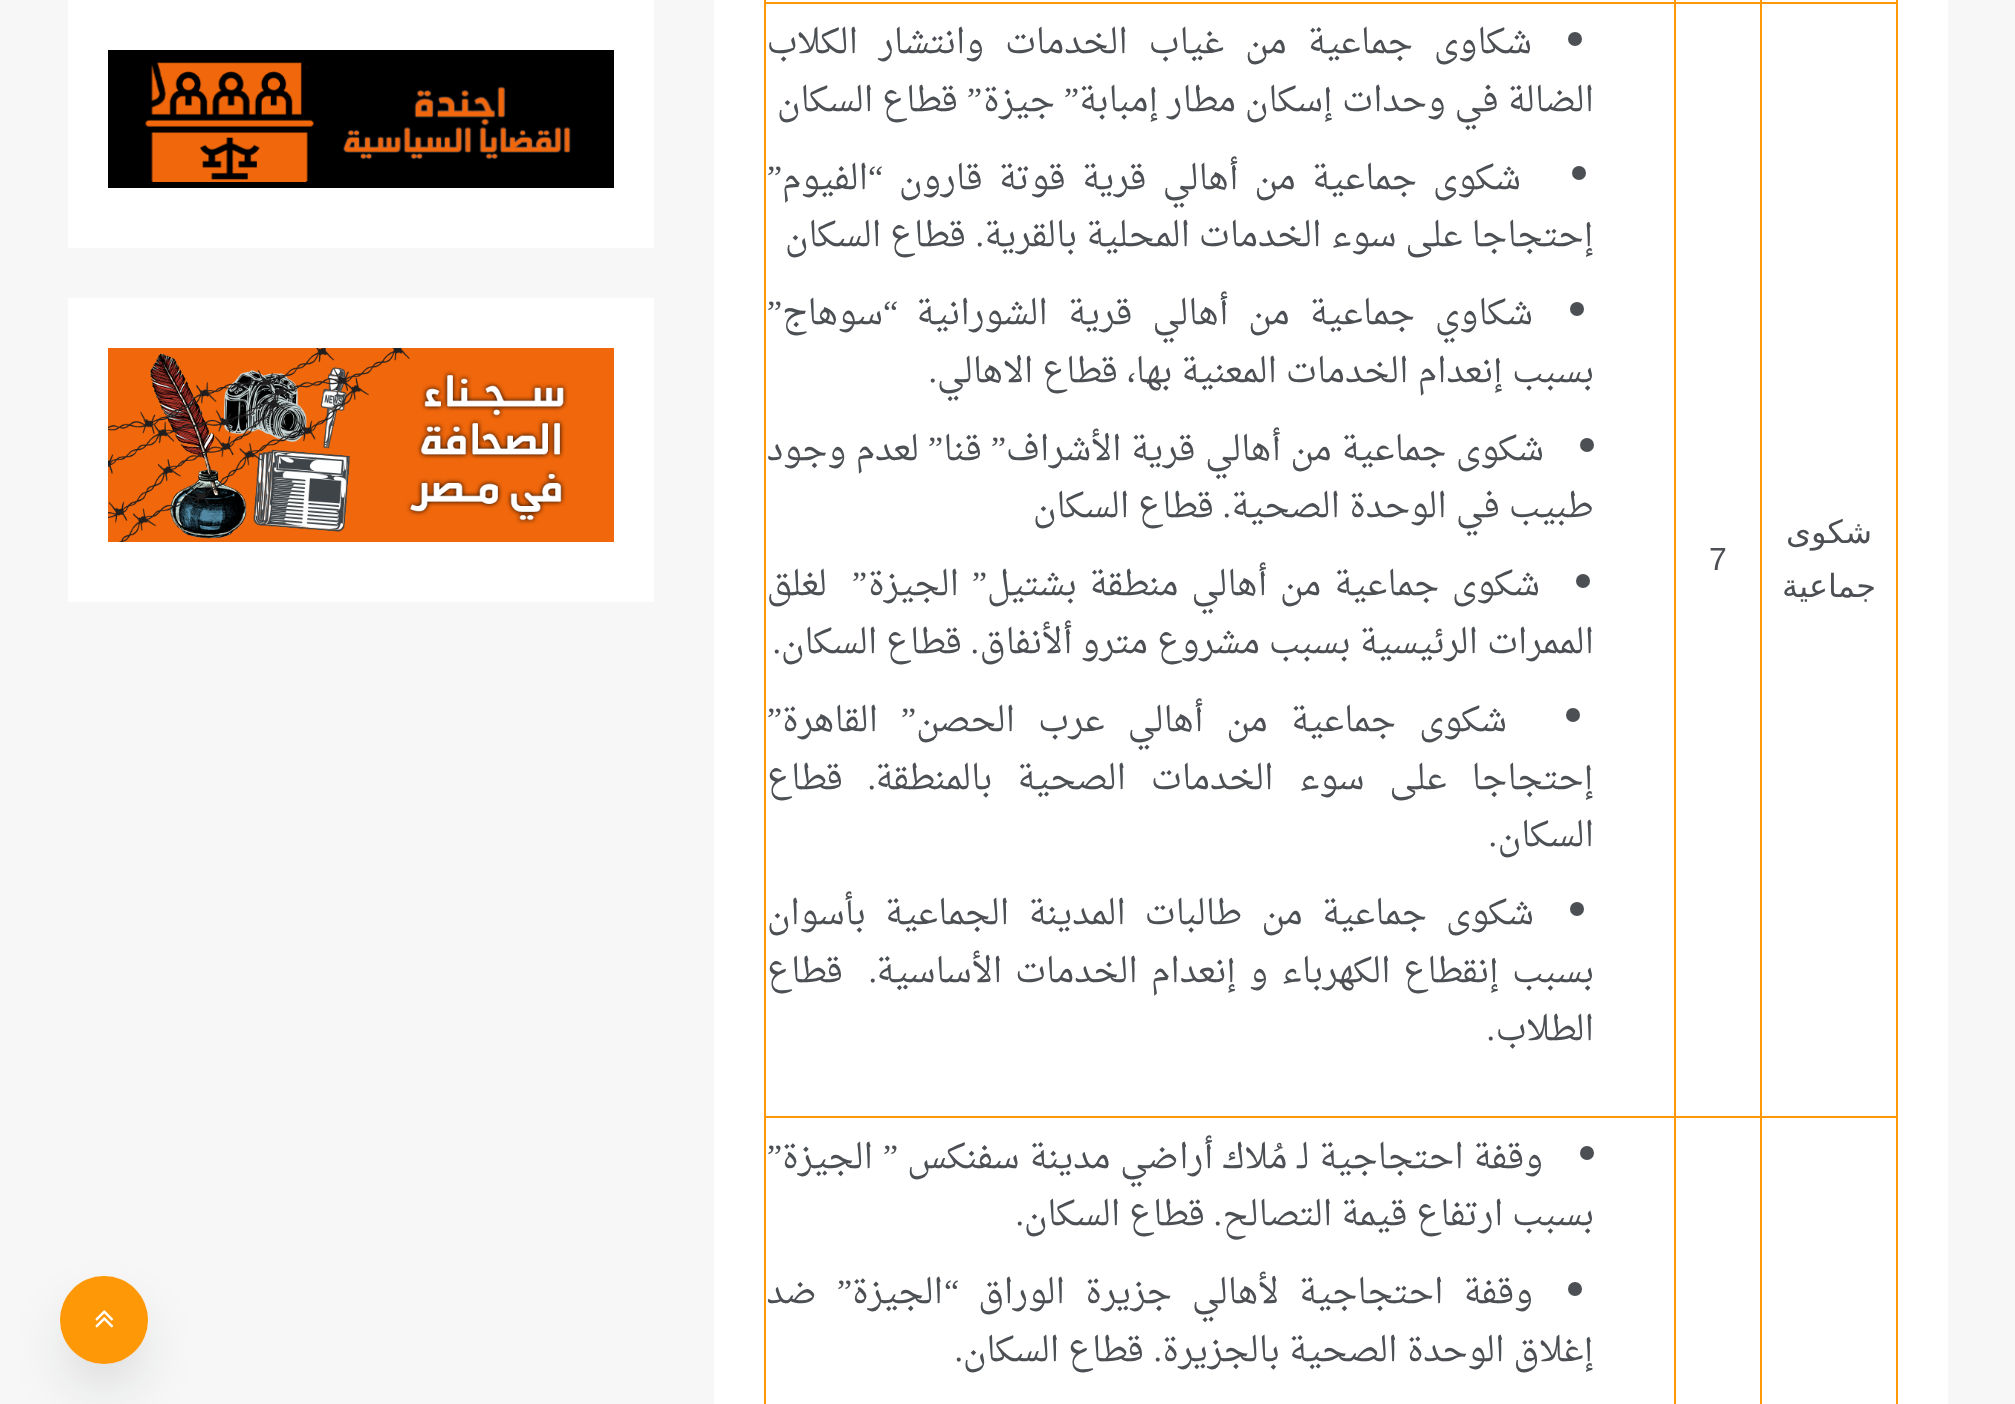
<svg xmlns="http://www.w3.org/2000/svg" xmlns:xlink="http://www.w3.org/1999/xlink" width="2015" height="1404" viewBox="0 0 2015 1404">
<style>
.cls-1{font:32px DejaVu Sans;direction:rtl;fill:#4c4f53}
.cls-2{font:32px Arimo;fill:#4c4f53}
.cls-3{font:34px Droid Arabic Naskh;direction:rtl;fill:#4c4f53}
.cls-4{font:34px Liberation Serif;direction:rtl;fill:#4c4f53}
</style>
<rect width="100%" height="100%" fill="#f7f7f7"/>
<rect fill="#ffffff" x="714" y="0" width="1234" height="1404"/>
<rect fill="#ff9806" x="764" y="2" width="912" height="2"/>
<rect fill="#ff9806" x="764" y="1116" width="912" height="2"/>
<rect fill="#ff9806" x="1674" y="1116" width="2" height="288"/>
<rect fill="#ff9806" x="1674" y="1116" width="88" height="2"/>
<rect fill="#ff9806" x="1674" y="2" width="2" height="1116"/>
<rect fill="#ff9806" x="1674" y="2" width="88" height="2"/>
<rect fill="#ff9806" x="1760" y="1116" width="2" height="288"/>
<rect fill="#ff9806" x="1760" y="1116" width="138" height="2"/>
<rect fill="#ff9806" x="1760" y="2" width="2" height="1116"/>
<rect fill="#ff9806" x="1760" y="2" width="138" height="2"/>
<rect fill="#ff9806" x="1760" y="0" width="2" height="4"/>
<rect fill="#ff9806" x="1674" y="0" width="2" height="4"/>
<rect fill="#ff9806" x="1896" y="1116" width="2" height="288"/>
<rect fill="#ff9806" x="1896" y="0" width="2" height="1118"/>
<rect fill="#ff9806" x="764" y="1116" width="2" height="288"/>
<rect fill="#ff9806" x="764" y="0" width="2" height="1118"/>
<circle fill="#4c4f53" cx="1575" cy="39" r="7"/>
<circle fill="#4c4f53" cx="1579" cy="173" r="7"/>
<circle fill="#4c4f53" cx="1577" cy="309" r="7"/>
<circle fill="#4c4f53" cx="1587" cy="445" r="7"/>
<circle fill="#4c4f53" cx="1583" cy="581" r="7"/>
<circle fill="#4c4f53" cx="1573" cy="715" r="7"/>
<circle fill="#4c4f53" cx="1577" cy="909" r="7"/>
<circle fill="#4c4f53" cx="1587" cy="1153" r="7"/>
<circle fill="#4c4f53" cx="1575" cy="1289" r="7"/>
<rect fill="#ffffff" x="68" y="0" width="586" height="248"/>
<image xlink:href="image0.png" x="108" y="50" width="506" height="138"/>
<rect fill="#ffffff" x="68" y="298" width="586" height="304"/>
<image xlink:href="image1.png" x="108" y="348" width="506" height="194"/>
<rect fill="#0f1215" fill-opacity="0.15" filter="blur(28px)" x="68" y="1312" width="72" height="72" rx="36"/>
<circle fill="#ff9807" cx="104" cy="1320" r="44"/>
<image xlink:href="image2.png" x="95" y="1310" width="19" height="18"/>
<text class="cls-1" x="1872" y="543">شكوى</text>
<text class="cls-1" x="1876" y="597">جماعية</text>
<text class="cls-2" x="1709" y="570">7</text>
<text class="cls-3" x="1532" y="53" word-spacing="12">شكاوى جماعية من غياب الخدمات وانتشار الكلاب</text>
<text class="cls-3" x="1594" y="111">الضالة في وحدات إسكان مطار إمبابة</text>
<text class="cls-4" x="1079" y="111">”</text>
<text class="cls-3" x="1055" y="111">جيزة</text>
<text class="cls-4" x="982" y="111">”</text>
<text class="cls-3" x="958" y="111">قطاع السكان</text>
<text class="cls-3" x="1521" y="189" word-spacing="7">شكوى جماعية من أهالي قرية قوتة قارون</text>
<text class="cls-4" x="883" y="189">“</text>
<text class="cls-3" x="868" y="189">الفيوم</text>
<text class="cls-4" x="782" y="189">”</text>
<text class="cls-3" x="1594" y="246">إحتجاجا على سوء الخدمات المحلية بالقرية</text>
<text class="cls-4" x="984" y="246">.</text>
<text class="cls-3" x="966" y="246">قطاع السكان</text>
<text class="cls-3" x="1533" y="324" word-spacing="11">شكاوي جماعية من أهالي قرية الشورانية</text>
<text class="cls-4" x="898" y="324">“</text>
<text class="cls-3" x="883" y="324">سوهاج</text>
<text class="cls-4" x="782" y="324">”</text>
<text class="cls-3" x="1594" y="382">بسبب إنعدام الخدمات المعنية بها، قطاع الاهالي</text>
<text class="cls-4" x="937" y="382">.</text>
<text class="cls-3" x="1544" y="460" word-spacing="0.5">شكوى جماعية من أهالي قرية الأشراف</text>
<text class="cls-4" x="1006" y="460">”</text>
<text class="cls-3" x="982" y="460">قنا</text>
<text class="cls-4" x="943" y="460">”</text>
<text class="cls-3" x="919" y="460" word-spacing="0.5">لعدم وجود</text>
<text class="cls-3" x="1594" y="517">طبيب في الوحدة الصحية</text>
<text class="cls-4" x="1231" y="517">.</text>
<text class="cls-3" x="1214" y="517">قطاع السكان</text>
<text class="cls-3" x="1540" y="595" word-spacing="3.75">شكوى جماعية من أهالي منطقة بشتيل</text>
<text class="cls-4" x="987" y="595">”</text>
<text class="cls-3" x="959" y="595">الجيزة</text>
<text class="cls-4" x="867" y="595">”</text>
<text class="cls-3" x="827" y="595">لغلق</text>
<text class="cls-3" x="1594" y="653">الممرات الرئيسية بسبب مشروع مترو ألأنفاق</text>
<text class="cls-4" x="979" y="653">.</text>
<text class="cls-3" x="962" y="653">قطاع السكان</text>
<text class="cls-4" x="781" y="653">.</text>
<text class="cls-3" x="1507" y="731" word-spacing="14">شكوى جماعية من أهالي عرب الحصن</text>
<text class="cls-4" x="916" y="731">”</text>
<text class="cls-3" x="878" y="731">القاهرة</text>
<text class="cls-4" x="782" y="731">”</text>
<text class="cls-3" x="1594" y="789" word-spacing="16">إحتجاجا على سوء الخدمات الصحية بالمنطقة</text>
<text class="cls-4" x="876" y="789">.</text>
<text class="cls-3" x="843" y="789">قطاع</text>
<text class="cls-3" x="1594" y="846">السكان</text>
<text class="cls-4" x="1497" y="846">.</text>
<text class="cls-3" x="1534" y="924" word-spacing="10">شكوى جماعية من طالبات المدينة الجماعية بأسوان</text>
<text class="cls-3" x="1594" y="982" word-spacing="4">بسبب إنقطاع الكهرباء و إنعدام الخدمات الأساسية</text>
<text class="cls-4" x="877" y="982">.</text>
<text class="cls-3" x="843" y="982">قطاع</text>
<text class="cls-3" x="1594" y="1040">الطلاب</text>
<text class="cls-4" x="1495" y="1040">.</text>
<text class="cls-3" x="1543" y="1168" word-spacing="0.75">وقفة احتجاجية لـ مُلاك أراضي مدينة سفنكس</text>
<text class="cls-4" x="898" y="1168">”</text>
<text class="cls-3" x="873" y="1168">الجيزة</text>
<text class="cls-4" x="782" y="1168">”</text>
<text class="cls-3" x="1594" y="1225">بسبب ارتفاع قيمة التصالح</text>
<text class="cls-4" x="1222" y="1225">.</text>
<text class="cls-3" x="1205" y="1225">قطاع السكان</text>
<text class="cls-4" x="1024" y="1225">.</text>
<text class="cls-3" x="1533" y="1303" word-spacing="11">وقفة احتجاجية لأهالي جزيرة الوراق</text>
<text class="cls-4" x="959" y="1303">“</text>
<text class="cls-3" x="943" y="1303">الجيزة</text>
<text class="cls-4" x="852" y="1303">”</text>
<text class="cls-3" x="817" y="1303">ضد</text>
<text class="cls-3" x="1594" y="1361">إغلاق الوحدة الصحية بالجزيرة</text>
<text class="cls-4" x="1162" y="1361">.</text>
<text class="cls-3" x="1144" y="1361">قطاع السكان</text>
<text class="cls-4" x="963" y="1361">.</text>
</svg>
